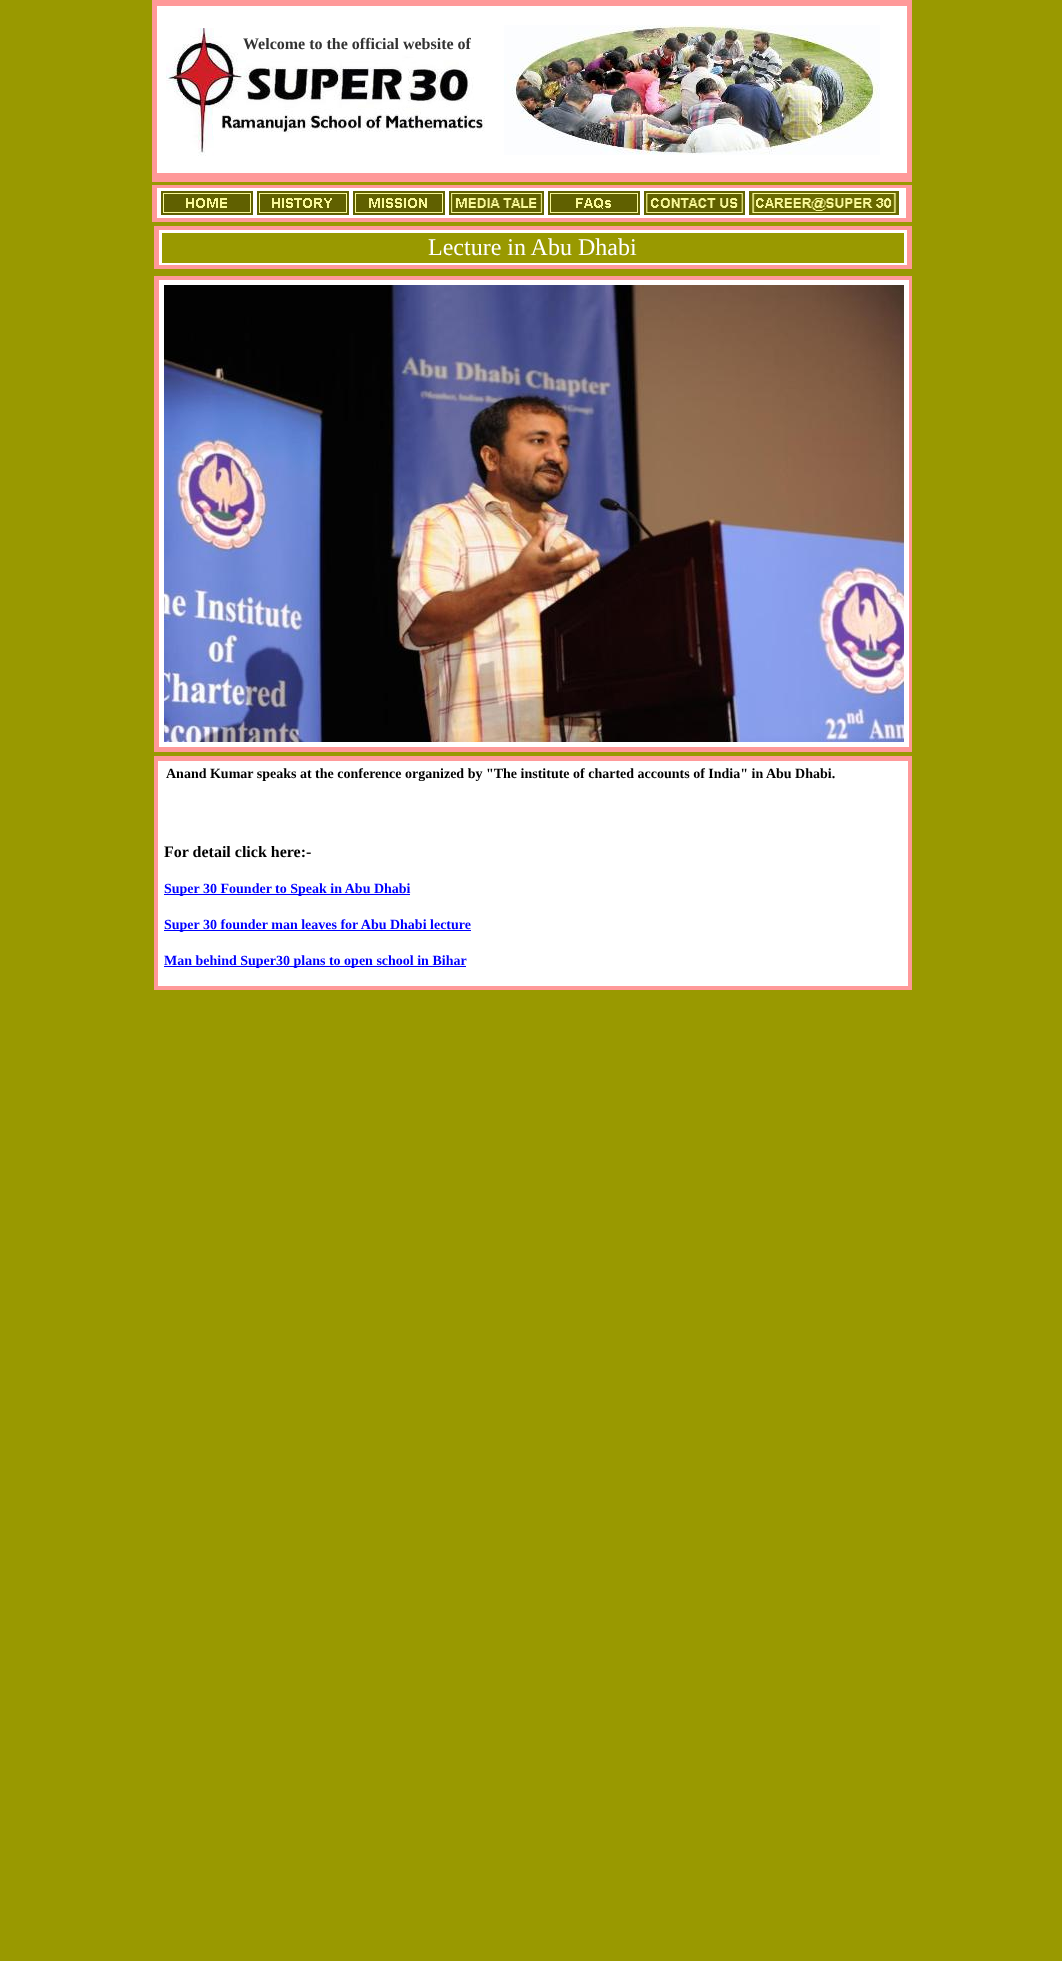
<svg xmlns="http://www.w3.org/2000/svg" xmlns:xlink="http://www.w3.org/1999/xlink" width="1062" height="1961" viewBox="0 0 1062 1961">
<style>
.cls-1{font:bold 16px Liberation Serif;fill:#333333}
.cls-2{font:24px Liberation Serif;fill:#ffffff}
.cls-3{font:bold 14px Liberation Serif;fill:#000000}
.cls-4{font:bold 16px Liberation Serif;fill:#000000}
.cls-5{font:bold 14px Liberation Serif;fill:#0000ff}
</style>
<rect width="100%" height="100%" fill="#999900"/>
<rect fill="#ff9999" x="152" y="0" width="760" height="182"/>
<rect fill="#ffffff" x="157" y="6" width="750" height="167"/>
<image xlink:href="image0.png" x="166" y="28" width="303" height="128"/>
<image xlink:href="image1.png" x="504" y="25" width="376" height="130"/>
<image xlink:href="image2.png" x="168" y="28" width="306" height="113"/>
<image xlink:href="image3.png" x="213" y="108" width="272" height="28"/>
<rect fill="#ff9999" x="152" y="185" width="760" height="37"/>
<rect fill="#ffffff" x="157" y="188" width="749" height="30"/>
<image xlink:href="image4.png" x="161" y="191" width="92" height="24"/>
<image xlink:href="image5.png" x="257" y="191" width="92" height="24"/>
<image xlink:href="image6.png" x="353" y="191" width="92" height="24"/>
<image xlink:href="image7.png" x="449" y="191" width="95" height="24"/>
<image xlink:href="image8.png" x="548" y="191" width="92" height="24"/>
<image xlink:href="image9.png" x="644" y="191" width="101" height="24"/>
<image xlink:href="image10.png" x="749" y="191" width="150" height="24"/>
<rect fill="#ff9999" x="154" y="226" width="758" height="43"/>
<rect fill="#ffffff" x="159" y="230" width="748" height="35"/>
<rect fill="#999900" x="162" y="233" width="742" height="30"/>
<rect fill="#ff9999" x="154" y="276" width="758" height="476"/>
<rect fill="#ffffff" x="159" y="280" width="750" height="467"/>
<image xlink:href="image11.png" x="164" y="285" width="740" height="457"/>
<rect fill="#ff9999" x="154" y="756" width="758" height="234"/>
<rect fill="#ffffff" x="158" y="761" width="750" height="225"/>
<rect fill="#0000ff" x="164" y="894" width="246" height="1"/>
<rect fill="#0000ff" x="164" y="930" width="307" height="1"/>
<rect fill="#0000ff" x="164" y="966" width="302" height="1"/>
<text class="cls-1" x="243" y="49">Welcome to the official website of</text>
<text class="cls-2" x="428" y="255">Lecture in Abu Dhabi</text>
<text class="cls-3" x="166" y="778">Anand Kumar speaks at the conference organized by "The institute of charted accounts of India" in Abu Dhabi.</text>
<text class="cls-4" x="164" y="857">For detail click here:-</text>
<text class="cls-5" x="164" y="893">Super 30 Founder to Speak in Abu Dhabi</text>
<text class="cls-5" x="164" y="929">Super 30 founder man leaves for Abu Dhabi lecture</text>
<text class="cls-5" x="164" y="965">Man behind Super30 plans to open school in Bihar</text>
</svg>
